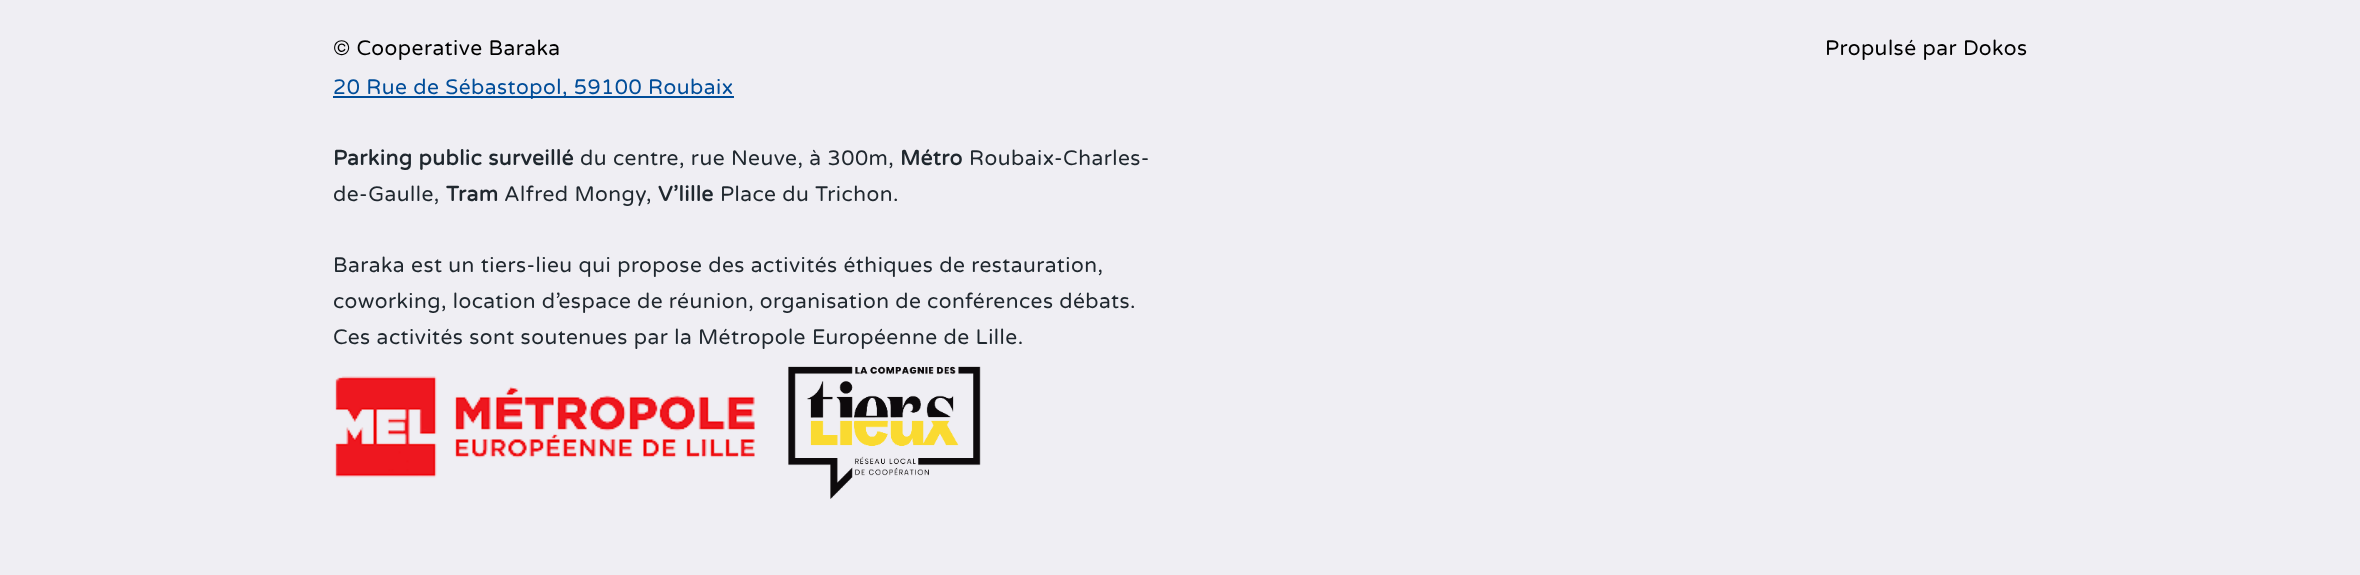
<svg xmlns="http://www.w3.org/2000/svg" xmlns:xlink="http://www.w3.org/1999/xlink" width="2360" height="575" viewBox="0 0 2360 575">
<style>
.cls-1{font:21px Varela Round;letter-spacing:0.48px;fill:#000000}
.cls-2{font:21px Varela Round;letter-spacing:0.48px;fill:#004d99}
.cls-3{font:bold 21px Varela Round;letter-spacing:0.48px;fill:#1f272e}
.cls-4{font:21px Varela Round;letter-spacing:0.48px;fill:#1f272e}
</style>
<rect width="100%" height="100%" fill="#efeef3"/>
<rect fill="#004d99" x="333" y="96" width="401" height="2"/>
<image xlink:href="image0.png" x="335" y="376" width="420" height="102"/>
<image xlink:href="image1.png" x="788" y="366" width="193" height="133"/>
<text class="cls-1" x="333" y="55">© Cooperative Baraka</text>
<text class="cls-2" x="333" y="94">20 Rue de Sébastopol, 59100 Roubaix</text>
<text class="cls-3" x="333" y="165">Parking public surveillé</text>
<text class="cls-4" x="580" y="165">du centre, rue Neuve, à 300m,</text>
<text class="cls-3" x="900" y="165">Métro</text>
<text class="cls-4" x="969" y="165">Roubaix-Charles-</text>
<text class="cls-4" x="333" y="201">de-Gaulle,</text>
<text class="cls-3" x="446" y="201">Tram</text>
<text class="cls-4" x="504" y="201">Alfred Mongy,</text>
<text class="cls-3" x="658" y="201">V’lille</text>
<text class="cls-4" x="720" y="201">Place du Trichon.</text>
<text class="cls-4"><tspan x="333" y="272">Baraka est un tiers-lieu qui propose des activités éthiques de restauration,</tspan><tspan x="333" y="308" word-spacing="-0.25">coworking, location d’espace de réunion, organisation de conférences débats.</tspan><tspan x="333" y="344">Ces activités sont soutenues par la Métropole Européenne de Lille.</tspan></text>
<text class="cls-1" x="1825" y="55">Propulsé par Dokos</text>
</svg>
